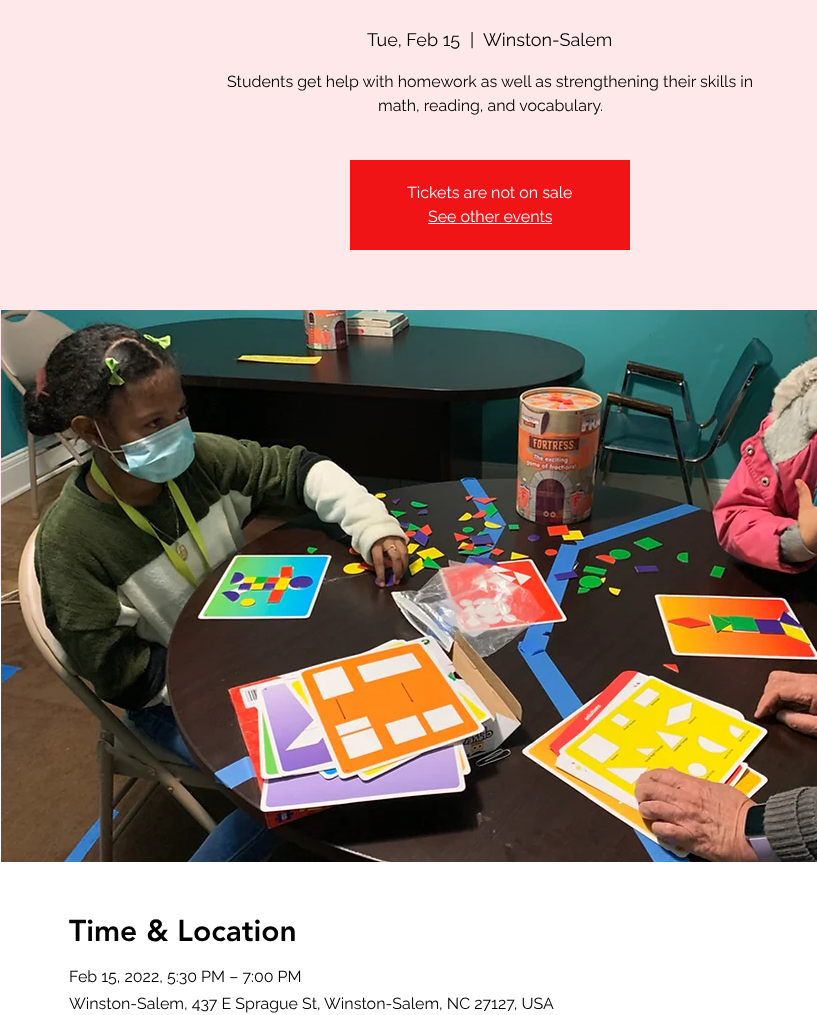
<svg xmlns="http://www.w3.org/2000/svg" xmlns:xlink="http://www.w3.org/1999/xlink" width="817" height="1015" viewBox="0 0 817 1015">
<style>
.cls-1{font:18px Raleway;fill:#000000}
.cls-2{font:16px Raleway;fill:#000000}
.cls-3{font:16px Raleway;fill:#ffffff}
.cls-4{font:900 30px 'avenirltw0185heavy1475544';fill:#000000}
</style>
<rect width="100%" height="100%" fill="#ffffff"/>
<rect fill="#fee8e9" x="0" y="0" width="817" height="586"/>
<rect fill="#f11417" x="350" y="160" width="280" height="90"/>
<rect fill="#ffffff" x="428" y="223" width="124" height="1"/>
<image xlink:href="image0.png" x="1" y="310" width="816" height="552"/>
<text class="cls-1" x="367" y="46">Tue, Feb 15</text>
<text class="cls-1" x="470" y="46">|</text>
<text class="cls-1" x="483" y="46">Winston-Salem</text>
<text class="cls-2" x="227" y="87">Students get help with homework as well as strengthening their skills in</text>
<text class="cls-2" x="378" y="111">math, reading, and vocabulary.</text>
<text class="cls-3" x="407" y="198">Tickets are not on sale</text>
<text class="cls-3" x="428" y="222">See other events</text>
<text class="cls-4" x="69" y="941">Time &amp; Location</text>
<text class="cls-2"><tspan x="69" y="982">Feb 15, 2022, 5:30 PM – 7:00 PM</tspan><tspan x="69" y="1009">Winston-Salem, 437 E Sprague St, Winston-Salem, NC 27127, USA</tspan></text>
</svg>
